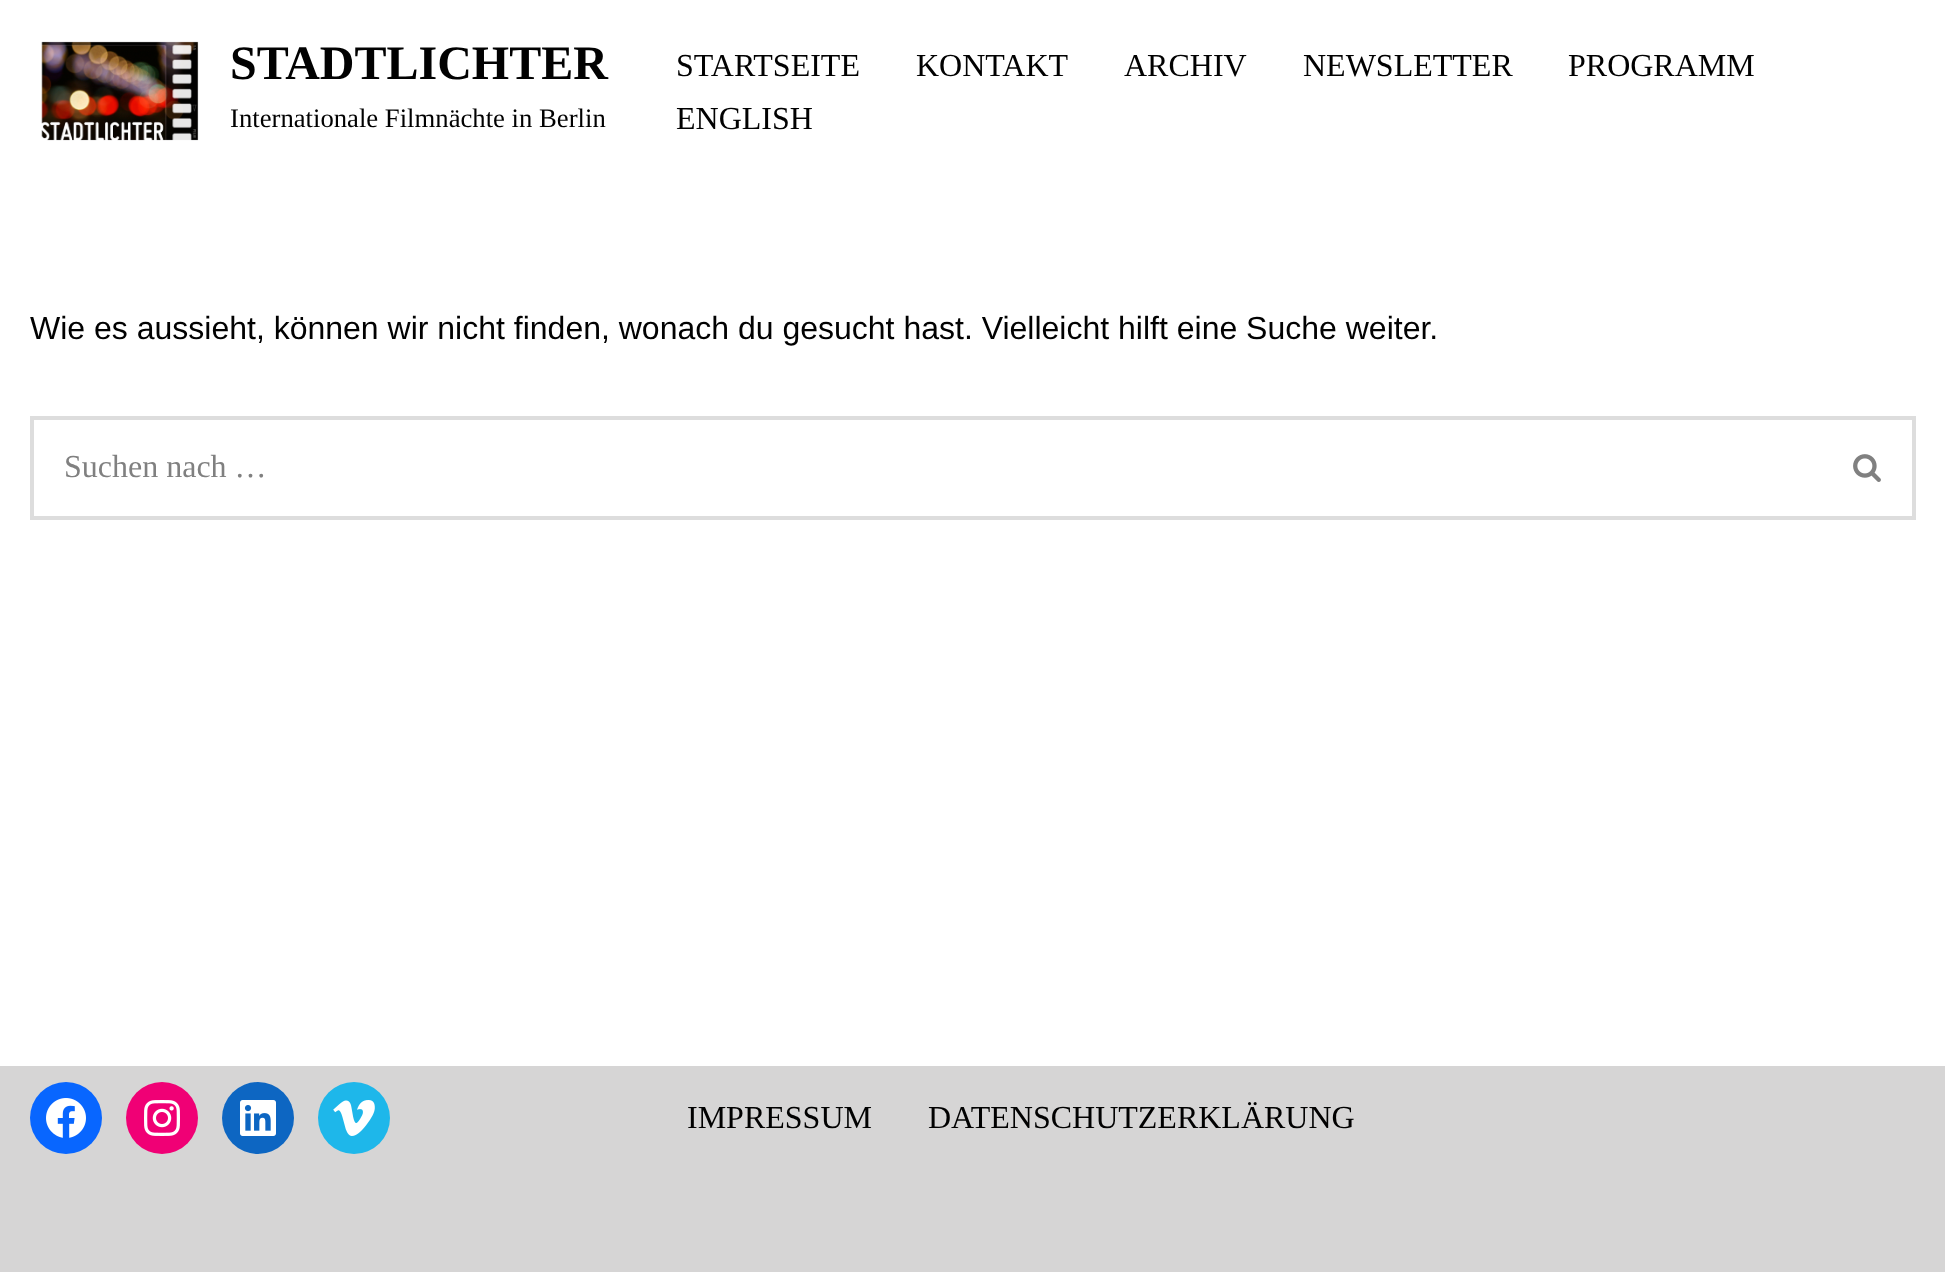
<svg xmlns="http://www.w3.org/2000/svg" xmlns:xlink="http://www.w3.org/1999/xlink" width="1945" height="1272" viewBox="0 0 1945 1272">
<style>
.cls-1{font:bold 48px Liberation Serif;fill:#010101}
.cls-2{font:26.7px Liberation Serif;fill:#010101}
.cls-3{font:32px Liberation Serif;fill:#010101}
.cls-4{font:32px Liberation Sans;fill:#010101}
.cls-5{font:32px Liberation Serif;fill:#808080}
</style>
<rect width="100%" height="100%" fill="#ffffff"/>
<image xlink:href="image0.png" x="41" y="41" width="158" height="100"/>
<rect fill="#dddddd" x="30" y="416" width="1886" height="4"/>
<rect fill="#dddddd" x="30" y="516" width="1792" height="4"/>
<rect fill="#dddddd" x="30" y="416" width="4" height="104"/>
<rect fill="#dddddd" x="1912" y="416" width="4" height="104"/>
<rect fill="#dddddd" x="1822" y="516" width="94" height="4"/>
<image xlink:href="image1.png" x="1853" y="454" width="28" height="28"/>
<rect fill="#d6d5d5" x="0" y="1066" width="1945" height="206"/>
<circle fill="#0866ff" cx="66" cy="1118" r="36"/>
<image xlink:href="image2.png" x="46" y="1098" width="40" height="40"/>
<circle fill="#f00075" cx="162" cy="1118" r="36"/>
<image xlink:href="image3.png" x="144" y="1100" width="36" height="36"/>
<circle fill="#0d66c2" cx="258" cy="1118" r="36"/>
<image xlink:href="image4.png" x="240" y="1100" width="36" height="36"/>
<circle fill="#1eb7ea" cx="354" cy="1118" r="36"/>
<image xlink:href="image5.png" x="333" y="1100" width="42" height="36"/>
<text class="cls-1" x="230" y="79">STADTLICHTER</text>
<text class="cls-2" x="230" y="127">Internationale Filmnächte in Berlin</text>
<text class="cls-3" x="676" y="76">STARTSEITE</text>
<text class="cls-3" x="916" y="76">KONTAKT</text>
<text class="cls-3" x="1124" y="76">ARCHIV</text>
<text class="cls-3" x="1303" y="76">NEWSLETTER</text>
<text class="cls-3" x="1568" y="76">PROGRAMM</text>
<text class="cls-3" x="676" y="129">ENGLISH</text>
<text class="cls-4" x="30" y="339">Wie es aussieht, können wir nicht finden, wonach du gesucht hast. Vielleicht hilft eine Suche weiter.</text>
<text class="cls-5" x="64" y="477">Suchen nach …</text>
<text class="cls-3" x="687" y="1128">IMPRESSUM</text>
<text class="cls-3" x="928" y="1128">DATENSCHUTZERKLÄRUNG</text>
</svg>
